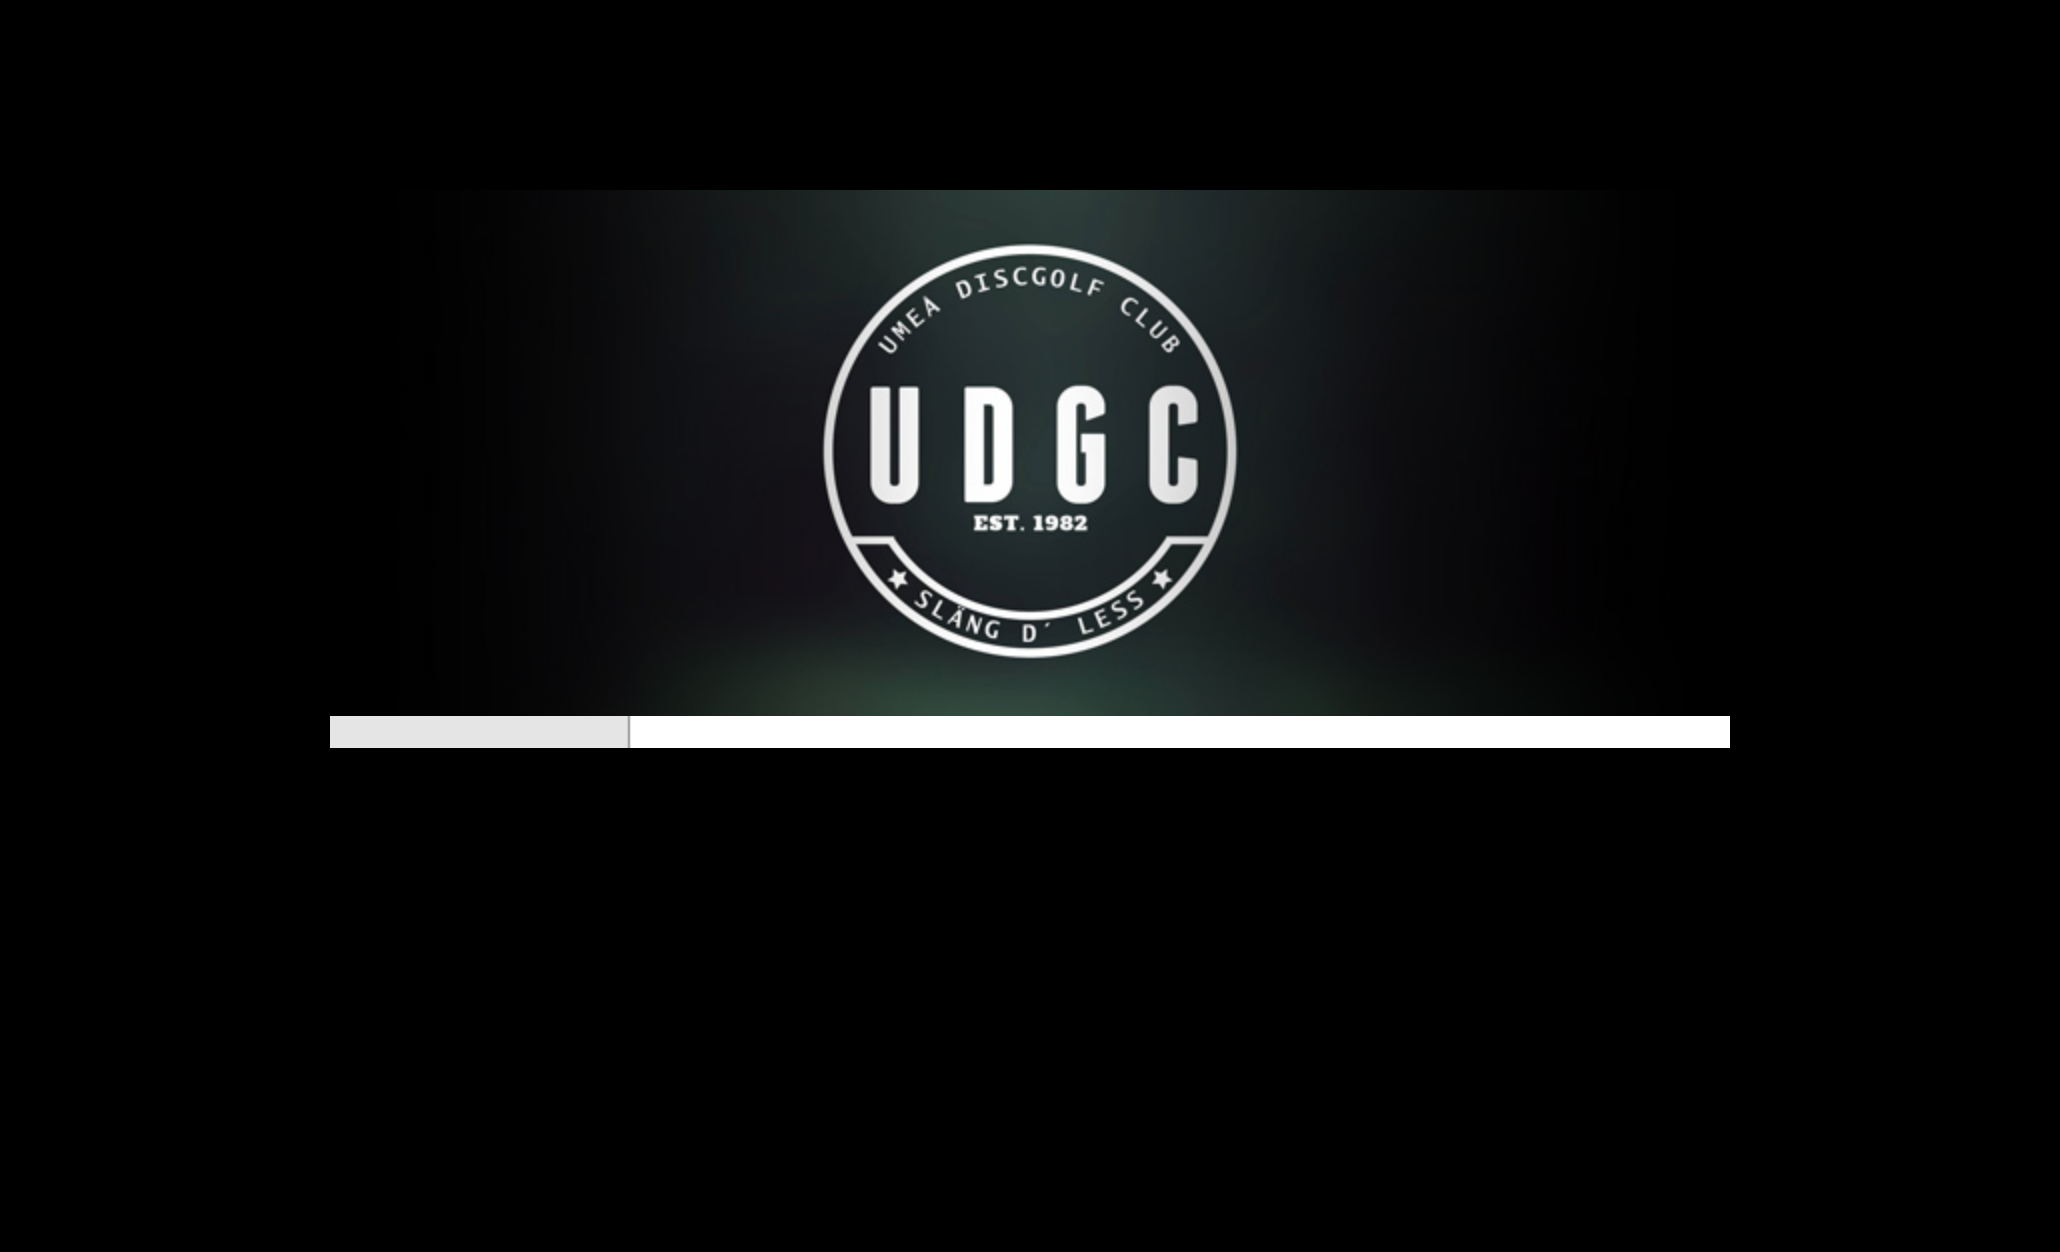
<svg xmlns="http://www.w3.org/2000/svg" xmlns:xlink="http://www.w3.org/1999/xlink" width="2060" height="1252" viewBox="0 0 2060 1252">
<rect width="100%" height="100%" fill="#000000"/>
<image xlink:href="image0.png" x="330" y="190" width="1400" height="526"/>
<rect fill="#ffffff" x="631" y="716" width="1099" height="32"/>
<image xlink:href="image1.png" x="330" y="716" width="301" height="32"/>
</svg>
